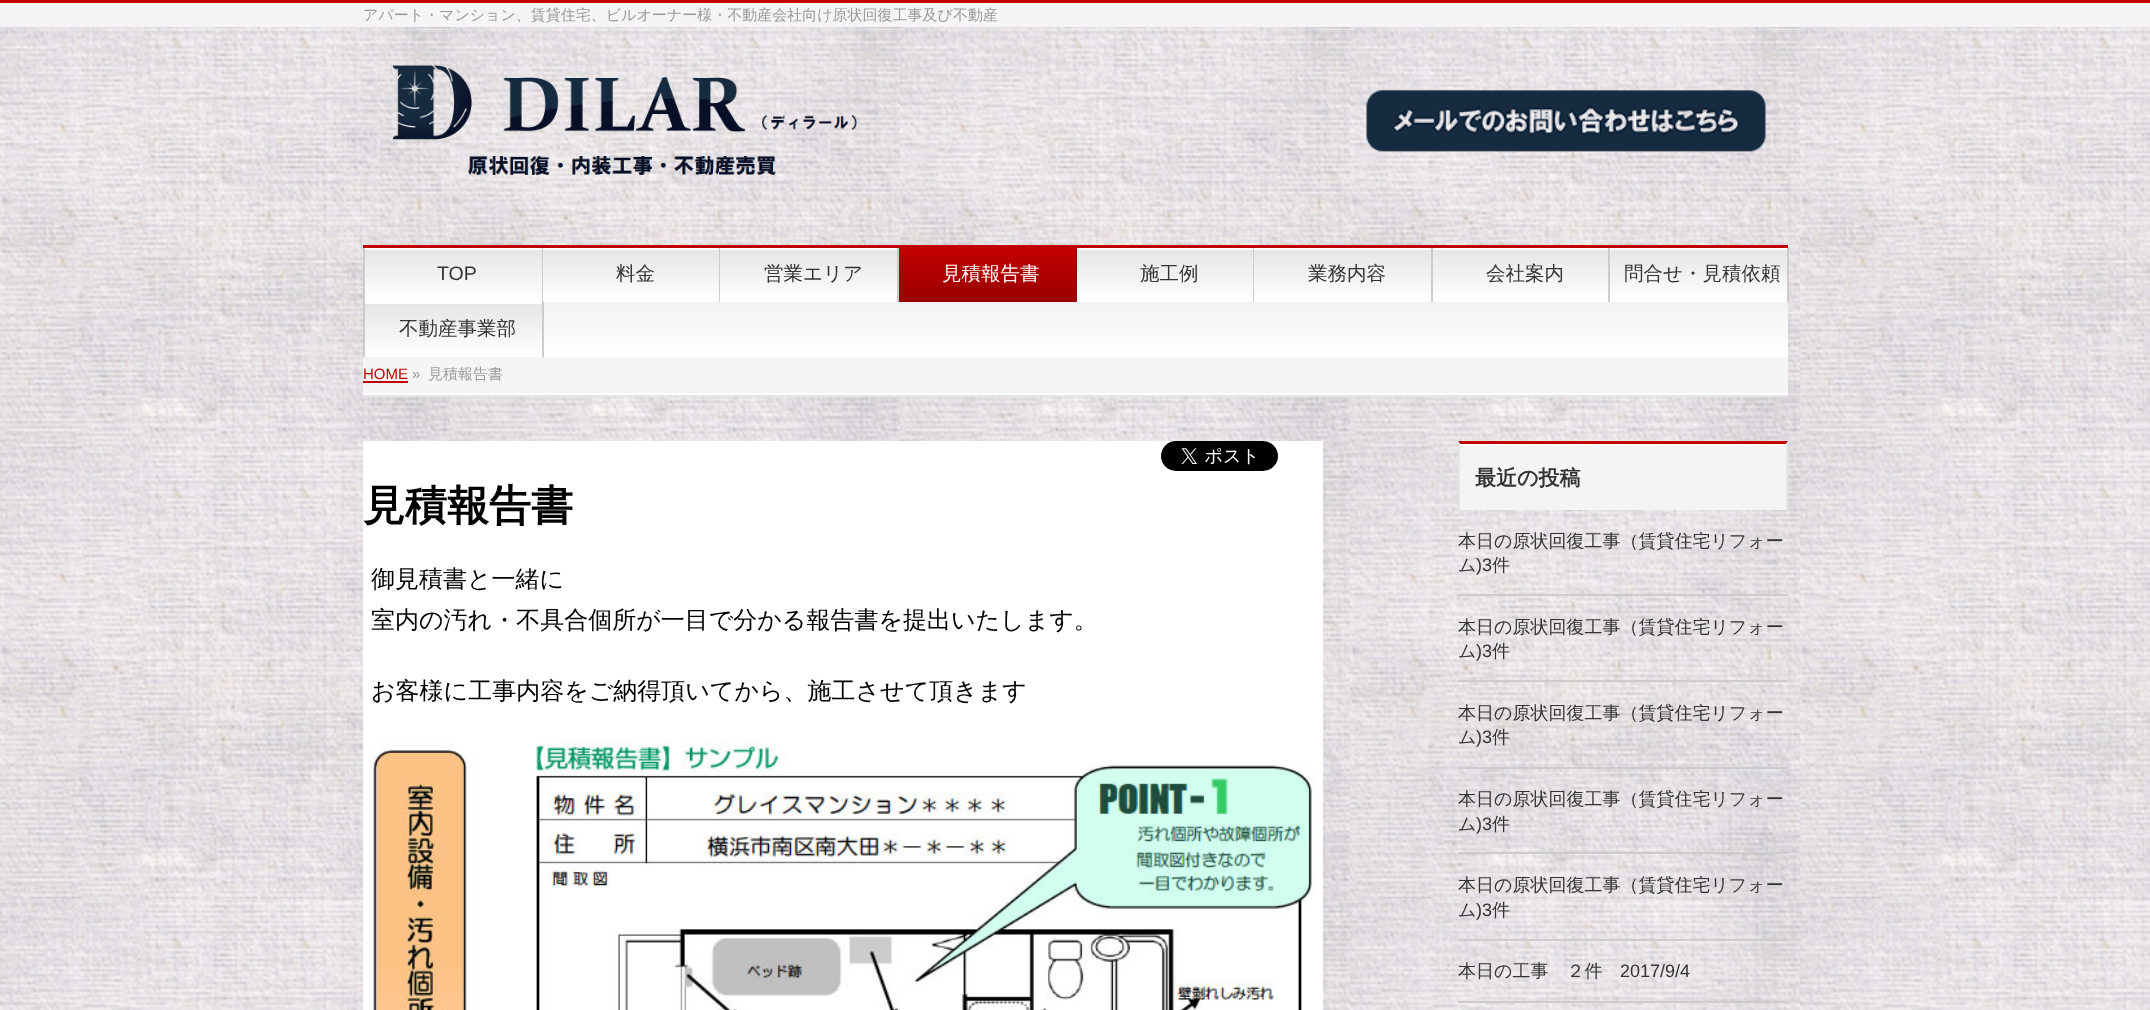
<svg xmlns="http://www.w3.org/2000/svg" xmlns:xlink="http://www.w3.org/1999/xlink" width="2150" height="1010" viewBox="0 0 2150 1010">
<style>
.cls-1{font:500 15px WenQuanYi Zen Hei;fill:#999999}
.cls-2{font:19.5px Liberation Sans;fill:#333333}
.cls-3{font:500 19.5px WenQuanYi Zen Hei;fill:#333333}
.cls-4{font:500 19.5px WenQuanYi Zen Hei;fill:#ffffff}
.cls-5{font:15px Liberation Sans;fill:#c30000}
.cls-6{font:15px Liberation Sans;fill:#999999}
.cls-7{font:bold 42px WenQuanYi Zen Hei;fill:#000000}
.cls-8{font:500 24px WenQuanYi Zen Hei;fill:#000000}
.cls-9{font:bold 21px WenQuanYi Zen Hei;fill:#333333}
.cls-10{font:500 18px WenQuanYi Zen Hei;fill:#333333}
.cls-11{font:18px Liberation Sans;fill:#333333}
</style>
<defs>
<linearGradient id="g1" gradientUnits="userSpaceOnUse" x1="1076" y1="247" x2="1076" y2="357"><stop offset="0" stop-color="#e5e5e5"/><stop offset="1" stop-color="#ffffff"/></linearGradient>
<linearGradient id="g2" gradientUnits="userSpaceOnUse" x1="365" y1="248" x2="365" y2="302"><stop offset="0" stop-color="#e5e5e5"/><stop offset="1" stop-color="#ffffff"/></linearGradient>
<linearGradient id="g3" gradientUnits="userSpaceOnUse" x1="543" y1="248" x2="543" y2="302"><stop offset="0" stop-color="#e5e5e5"/><stop offset="1" stop-color="#ffffff"/></linearGradient>
<linearGradient id="g4" gradientUnits="userSpaceOnUse" x1="720" y1="248" x2="720" y2="302"><stop offset="0" stop-color="#e5e5e5"/><stop offset="1" stop-color="#ffffff"/></linearGradient>
<linearGradient id="g5" gradientUnits="userSpaceOnUse" x1="987" y1="248" x2="987" y2="302"><stop offset="0" stop-color="#c30000"/><stop offset="1" stop-color="#990000"/></linearGradient>
<linearGradient id="g6" gradientUnits="userSpaceOnUse" x1="1077" y1="248" x2="1077" y2="302"><stop offset="0" stop-color="#e5e5e5"/><stop offset="1" stop-color="#ffffff"/></linearGradient>
<linearGradient id="g7" gradientUnits="userSpaceOnUse" x1="1254" y1="248" x2="1254" y2="302"><stop offset="0" stop-color="#e5e5e5"/><stop offset="1" stop-color="#ffffff"/></linearGradient>
<linearGradient id="g8" gradientUnits="userSpaceOnUse" x1="1433" y1="248" x2="1433" y2="302"><stop offset="0" stop-color="#e5e5e5"/><stop offset="1" stop-color="#ffffff"/></linearGradient>
<linearGradient id="g9" gradientUnits="userSpaceOnUse" x1="1610" y1="248" x2="1610" y2="302"><stop offset="0" stop-color="#e5e5e5"/><stop offset="1" stop-color="#ffffff"/></linearGradient>
<linearGradient id="g10" gradientUnits="userSpaceOnUse" x1="365" y1="302" x2="365" y2="357"><stop offset="0" stop-color="#e5e5e5"/><stop offset="1" stop-color="#ffffff"/></linearGradient>
</defs>
<rect width="100%" height="100%" fill="#ffffff"/>
<image xlink:href="image0.png" x="0" y="27" width="2150" height="983"/>
<rect fill="#f5f5f5" x="0" y="3" width="2150" height="24"/>
<rect fill="#c30000" x="0" y="0" width="2150" height="3"/>
<image xlink:href="image1.png" x="392" y="65" width="466" height="110"/>
<image xlink:href="image2.png" x="1366" y="90" width="400" height="62"/>
<rect fill="url(#g1)" x="544" y="302" width="1244" height="55"/>
<rect fill="#c30000" x="363" y="245" width="1425" height="3"/>
<rect fill="#cccccc" x="363" y="248" width="2" height="109"/>
<rect fill="url(#g2)" x="365" y="250" width="177" height="52"/>
<rect fill="#ffffff" x="365" y="248" width="177" height="2"/>
<rect fill="#cccccc" x="542" y="248" width="1" height="54"/>
<rect fill="url(#g3)" x="543" y="250" width="176" height="52"/>
<rect fill="#ffffff" x="543" y="248" width="176" height="2"/>
<rect fill="#cccccc" x="719" y="248" width="1" height="54"/>
<rect fill="url(#g4)" x="720" y="250" width="177" height="52"/>
<rect fill="#ffffff" x="720" y="248" width="177" height="2"/>
<rect fill="#cccccc" x="897" y="248" width="2" height="54"/>
<rect fill="url(#g5)" x="899" y="248" width="177" height="54"/>
<rect fill="#990000" x="1076" y="248" width="1" height="54"/>
<rect fill="url(#g6)" x="1077" y="250" width="176" height="52"/>
<rect fill="#ffffff" x="1077" y="248" width="176" height="2"/>
<rect fill="#cccccc" x="1253" y="248" width="1" height="54"/>
<rect fill="url(#g7)" x="1254" y="250" width="177" height="52"/>
<rect fill="#ffffff" x="1254" y="248" width="177" height="2"/>
<rect fill="#cccccc" x="1431" y="248" width="2" height="54"/>
<rect fill="url(#g8)" x="1433" y="250" width="175" height="52"/>
<rect fill="#ffffff" x="1433" y="248" width="175" height="2"/>
<rect fill="#cccccc" x="1608" y="248" width="2" height="54"/>
<rect fill="url(#g9)" x="1610" y="250" width="177" height="52"/>
<rect fill="#ffffff" x="1610" y="248" width="177" height="2"/>
<rect fill="#cccccc" x="1787" y="248" width="2" height="54"/>
<rect fill="url(#g10)" x="365" y="304" width="177" height="53"/>
<rect fill="#ffffff" x="365" y="302" width="177" height="2"/>
<rect fill="#cccccc" x="542" y="302" width="2" height="55"/>
<rect fill="#f5f5f5" x="363" y="357" width="1425" height="36"/>
<rect fill="#e5e5e5" x="363" y="395" width="1425" height="2"/>
<rect fill="#ffffff" x="363" y="393" width="1425" height="2"/>
<rect fill="#c30000" x="363" y="381" width="45" height="2"/>
<rect fill="#ffffff" x="363" y="441" width="960" height="569"/>
<image xlink:href="image3.png" x="1161" y="441" width="117" height="30"/>
<image xlink:href="image4.png" x="370" y="741" width="946" height="269"/>
<rect fill="#f4f4f4" x="1458" y="441" width="330" height="69"/>
<rect fill="#ffffff" x="1460" y="444" width="327" height="2"/>
<path fill="#c30000" d="M1458 441H1788L1786 444H1460Z"/>
<path fill="#e5e5e5" d="M1788 441V510H1786V444Z"/>
<path fill="#e5e5e5" d="M1458 510V441L1460 444V510Z"/>
<rect fill="#cccccc" x="1458" y="594" width="330" height="2"/>
<rect fill="#cccccc" x="1458" y="680" width="330" height="2"/>
<rect fill="#cccccc" x="1458" y="767" width="330" height="2"/>
<rect fill="#cccccc" x="1458" y="852" width="330" height="2"/>
<rect fill="#cccccc" x="1458" y="939" width="330" height="2"/>
<rect fill="#cccccc" x="1458" y="1001" width="330" height="2"/>
<text class="cls-1" x="363" y="20">アパート・マンション、賃貸住宅、ビルオーナー様・不動産会社向け原状回復工事及び不動産</text>
<text class="cls-2" x="437" y="280">TOP</text>
<text class="cls-3" x="616" y="280">料金</text>
<text class="cls-3" x="764" y="280">営業エリア</text>
<text class="cls-4" x="942" y="280">見積報告書</text>
<text class="cls-3" x="1140" y="280">施工例</text>
<text class="cls-3" x="1308" y="280">業務内容</text>
<text class="cls-3" x="1486" y="280">会社案内</text>
<text class="cls-3" x="1624" y="280">問合せ・見積依頼</text>
<text class="cls-3" x="399" y="335">不動産事業部</text>
<text class="cls-5" x="363" y="379">HOME</text>
<text class="cls-6" x="412" y="379">»</text>
<text class="cls-1" x="428" y="379">見積報告書</text>
<text class="cls-7" x="363" y="520">見積報告書</text>
<text class="cls-8"><tspan x="371" y="587">御見積書と一緒に</tspan><tspan x="371" y="628">室内の汚れ・不具合個所が一目で分かる報告書を提出いたします。</tspan></text>
<text class="cls-8" x="371" y="699">お客様に工事内容をご納得頂いてから、施工させて頂きます</text>
<text class="cls-9" x="1475" y="485">最近の投稿</text>
<text class="cls-10"><tspan x="1458" y="547">本日の原状回復工事（賃貸住宅リフォー</tspan><tspan x="1458" y="571">ム</tspan></text>
<text class="cls-11" x="1476" y="571">)3</text>
<text class="cls-10" x="1492" y="571">件</text>
<text class="cls-10"><tspan x="1458" y="633">本日の原状回復工事（賃貸住宅リフォー</tspan><tspan x="1458" y="657">ム</tspan></text>
<text class="cls-11" x="1476" y="657">)3</text>
<text class="cls-10" x="1492" y="657">件</text>
<text class="cls-10"><tspan x="1458" y="719">本日の原状回復工事（賃貸住宅リフォー</tspan><tspan x="1458" y="743">ム</tspan></text>
<text class="cls-11" x="1476" y="743">)3</text>
<text class="cls-10" x="1492" y="743">件</text>
<text class="cls-10"><tspan x="1458" y="805">本日の原状回復工事（賃貸住宅リフォー</tspan><tspan x="1458" y="830">ム</tspan></text>
<text class="cls-11" x="1476" y="830">)3</text>
<text class="cls-10" x="1492" y="830">件</text>
<text class="cls-10"><tspan x="1458" y="891">本日の原状回復工事（賃貸住宅リフォー</tspan><tspan x="1458" y="916">ム</tspan></text>
<text class="cls-11" x="1476" y="916">)3</text>
<text class="cls-10" x="1492" y="916">件</text>
<text class="cls-10" x="1458" y="977">本日の工事　２件</text>
<text class="cls-11" x="1620" y="977">2017/9/4</text>
</svg>
